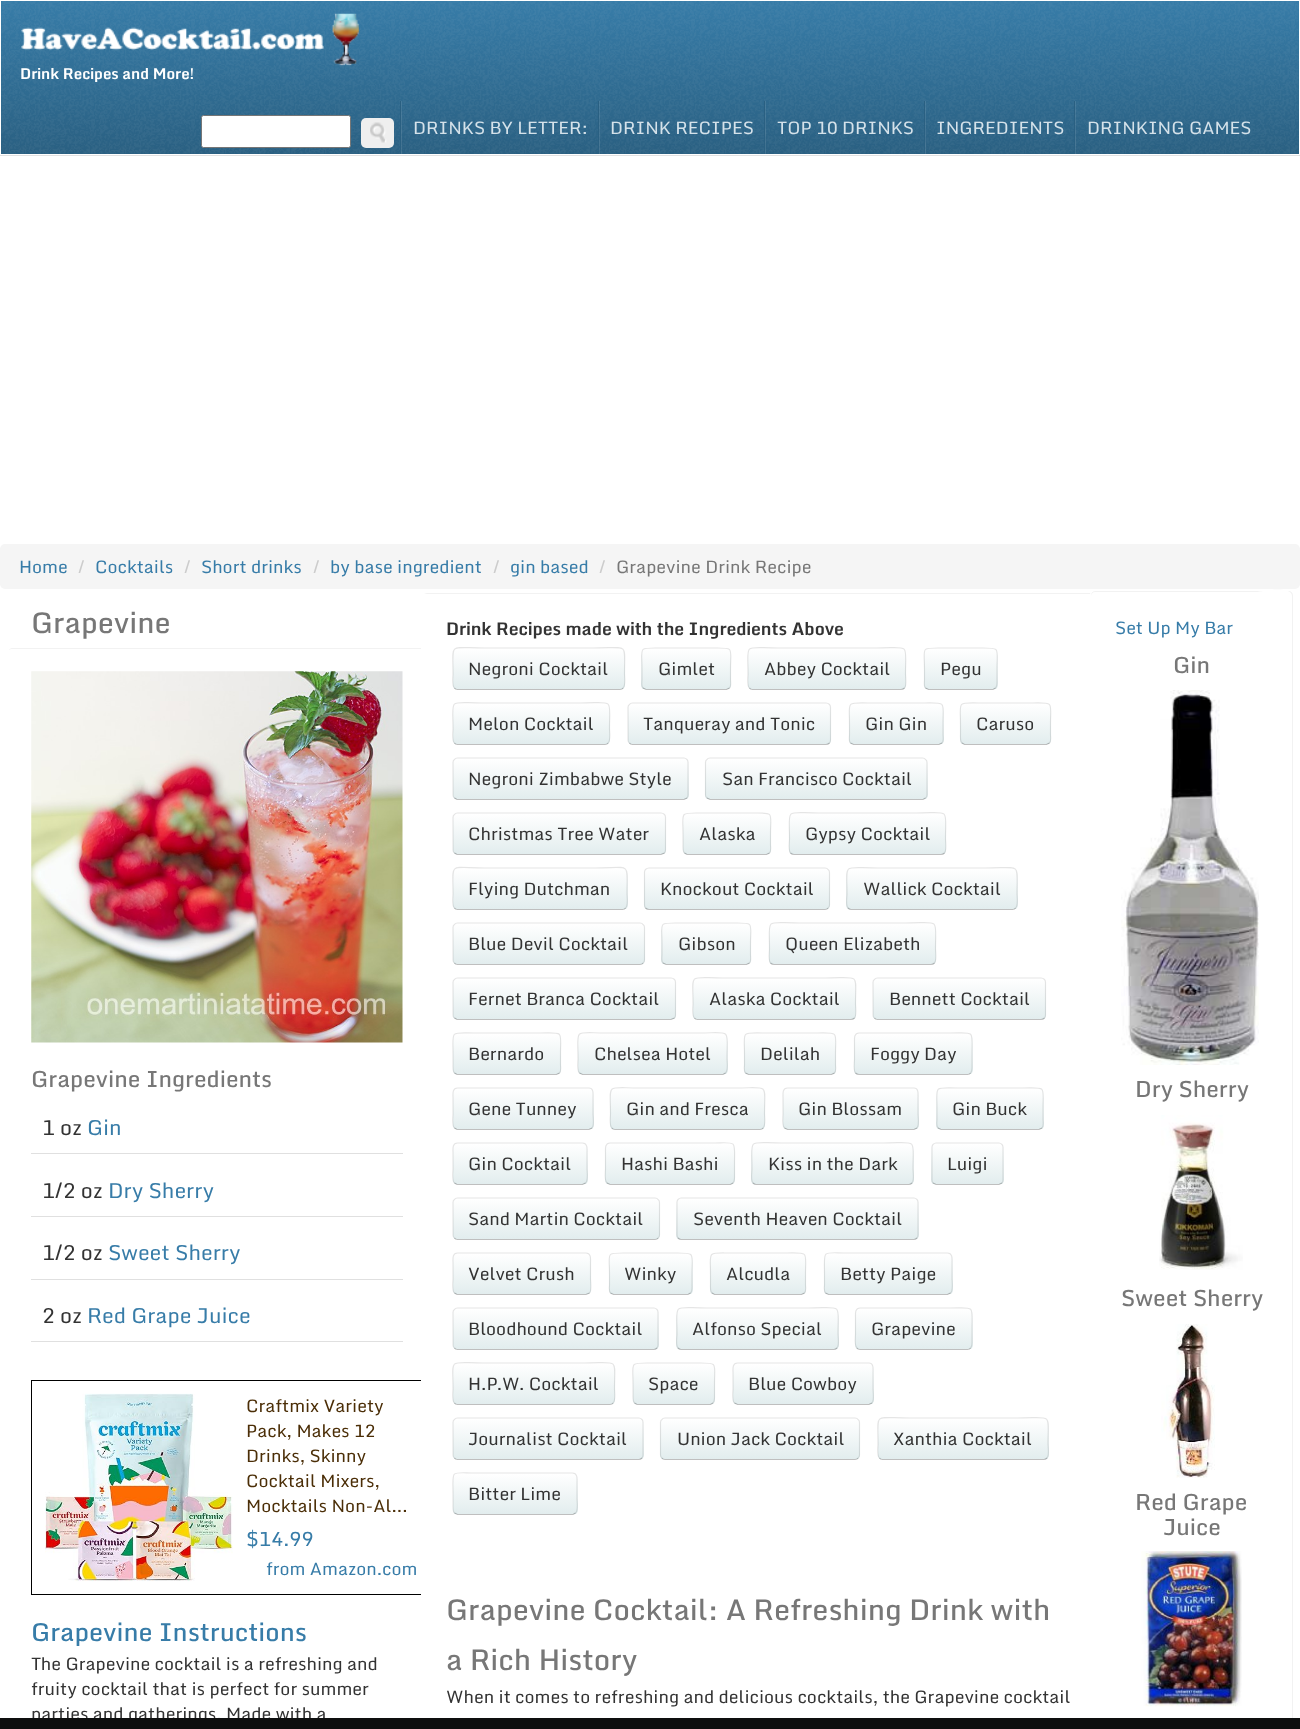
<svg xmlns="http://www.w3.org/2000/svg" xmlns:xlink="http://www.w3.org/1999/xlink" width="1300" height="1729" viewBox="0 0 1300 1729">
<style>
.cls-1{font:bold 15px Monda;fill:#ffffff}
.cls-2{font:17.5px Monda;fill:#d5e2ea}
.cls-3{font:17.5px Monda;fill:#377ca8}
.cls-4{font:17.5px Monda;fill:#cccccc}
.cls-5{font:17.5px Monda;fill:#777777}
.cls-6{font:500 28.75px Monda;fill:#777777}
.cls-7{font:500 22.5px Monda;fill:#777777}
.cls-8{font:21px Monda;fill:#333333}
.cls-9{font:21px Monda;fill:#377ca8}
.cls-10{font:17.5px Monda;fill:#4b2e07}
.cls-11{font:20px Monda;fill:#377ca8}
.cls-12{font:500 25px Monda;fill:#377ca8}
.cls-13{font:17.5px Monda;fill:#333333}
.cls-14{font:bold 17.5px Monda;fill:#333333}
</style>
<defs>
<linearGradient id="g1" gradientUnits="userSpaceOnUse" x1="650" y1="1.2" x2="650" y2="154"><stop offset="0" stop-color="#377ca8"/><stop offset="1" stop-color="#2a6082"/></linearGradient>
<clipPath id="clip1"><rect x="453" y="648" width="172" height="42" rx="5"/></clipPath>
<linearGradient id="g2" gradientUnits="userSpaceOnUse" x1="539" y1="649" x2="539" y2="689"><stop offset="0" stop-color="#ffffff"/><stop offset="1" stop-color="#e2edee"/></linearGradient>
<clipPath id="clip2"><rect x="641" y="648" width="90" height="42" rx="5"/></clipPath>
<linearGradient id="g3" gradientUnits="userSpaceOnUse" x1="686" y1="649" x2="686" y2="689"><stop offset="0" stop-color="#ffffff"/><stop offset="1" stop-color="#e2edee"/></linearGradient>
<clipPath id="clip3"><rect x="748" y="648" width="158" height="42" rx="5"/></clipPath>
<linearGradient id="g4" gradientUnits="userSpaceOnUse" x1="827" y1="649" x2="827" y2="689"><stop offset="0" stop-color="#ffffff"/><stop offset="1" stop-color="#e2edee"/></linearGradient>
<clipPath id="clip4"><rect x="924" y="648" width="74" height="42" rx="5"/></clipPath>
<linearGradient id="g5" gradientUnits="userSpaceOnUse" x1="961" y1="649" x2="961" y2="689"><stop offset="0" stop-color="#ffffff"/><stop offset="1" stop-color="#e2edee"/></linearGradient>
<clipPath id="clip5"><rect x="453" y="703" width="157" height="42" rx="5"/></clipPath>
<linearGradient id="g6" gradientUnits="userSpaceOnUse" x1="531" y1="704" x2="531" y2="744"><stop offset="0" stop-color="#ffffff"/><stop offset="1" stop-color="#e2edee"/></linearGradient>
<clipPath id="clip6"><rect x="628" y="703" width="203" height="42" rx="5"/></clipPath>
<linearGradient id="g7" gradientUnits="userSpaceOnUse" x1="729" y1="704" x2="729" y2="744"><stop offset="0" stop-color="#ffffff"/><stop offset="1" stop-color="#e2edee"/></linearGradient>
<clipPath id="clip7"><rect x="849" y="703" width="95" height="42" rx="5"/></clipPath>
<linearGradient id="g8" gradientUnits="userSpaceOnUse" x1="896" y1="704" x2="896" y2="744"><stop offset="0" stop-color="#ffffff"/><stop offset="1" stop-color="#e2edee"/></linearGradient>
<clipPath id="clip8"><rect x="960" y="703" width="91" height="42" rx="5"/></clipPath>
<linearGradient id="g9" gradientUnits="userSpaceOnUse" x1="1006" y1="704" x2="1006" y2="744"><stop offset="0" stop-color="#ffffff"/><stop offset="1" stop-color="#e2edee"/></linearGradient>
<clipPath id="clip9"><rect x="453" y="758" width="236" height="42" rx="5"/></clipPath>
<linearGradient id="g10" gradientUnits="userSpaceOnUse" x1="571" y1="759" x2="571" y2="799"><stop offset="0" stop-color="#ffffff"/><stop offset="1" stop-color="#e2edee"/></linearGradient>
<clipPath id="clip10"><rect x="705" y="758" width="223" height="42" rx="5"/></clipPath>
<linearGradient id="g11" gradientUnits="userSpaceOnUse" x1="816" y1="759" x2="816" y2="799"><stop offset="0" stop-color="#ffffff"/><stop offset="1" stop-color="#e2edee"/></linearGradient>
<clipPath id="clip11"><rect x="453" y="813" width="213" height="42" rx="5"/></clipPath>
<linearGradient id="g12" gradientUnits="userSpaceOnUse" x1="559" y1="814" x2="559" y2="854"><stop offset="0" stop-color="#ffffff"/><stop offset="1" stop-color="#e2edee"/></linearGradient>
<clipPath id="clip12"><rect x="683" y="813" width="88" height="42" rx="5"/></clipPath>
<linearGradient id="g13" gradientUnits="userSpaceOnUse" x1="727" y1="814" x2="727" y2="854"><stop offset="0" stop-color="#ffffff"/><stop offset="1" stop-color="#e2edee"/></linearGradient>
<clipPath id="clip13"><rect x="789" y="813" width="157" height="42" rx="5"/></clipPath>
<linearGradient id="g14" gradientUnits="userSpaceOnUse" x1="868" y1="814" x2="868" y2="854"><stop offset="0" stop-color="#ffffff"/><stop offset="1" stop-color="#e2edee"/></linearGradient>
<clipPath id="clip14"><rect x="453" y="868" width="175" height="42" rx="5"/></clipPath>
<linearGradient id="g15" gradientUnits="userSpaceOnUse" x1="540" y1="869" x2="540" y2="909"><stop offset="0" stop-color="#ffffff"/><stop offset="1" stop-color="#e2edee"/></linearGradient>
<clipPath id="clip15"><rect x="644" y="868" width="186" height="42" rx="5"/></clipPath>
<linearGradient id="g16" gradientUnits="userSpaceOnUse" x1="737" y1="869" x2="737" y2="909"><stop offset="0" stop-color="#ffffff"/><stop offset="1" stop-color="#e2edee"/></linearGradient>
<clipPath id="clip16"><rect x="846" y="868" width="172" height="42" rx="5"/></clipPath>
<linearGradient id="g17" gradientUnits="userSpaceOnUse" x1="932" y1="869" x2="932" y2="909"><stop offset="0" stop-color="#ffffff"/><stop offset="1" stop-color="#e2edee"/></linearGradient>
<clipPath id="clip17"><rect x="453" y="923" width="192" height="42" rx="5"/></clipPath>
<linearGradient id="g18" gradientUnits="userSpaceOnUse" x1="549" y1="924" x2="549" y2="964"><stop offset="0" stop-color="#ffffff"/><stop offset="1" stop-color="#e2edee"/></linearGradient>
<clipPath id="clip18"><rect x="661" y="923" width="90" height="42" rx="5"/></clipPath>
<linearGradient id="g19" gradientUnits="userSpaceOnUse" x1="706" y1="924" x2="706" y2="964"><stop offset="0" stop-color="#ffffff"/><stop offset="1" stop-color="#e2edee"/></linearGradient>
<clipPath id="clip19"><rect x="769" y="923" width="167" height="42" rx="5"/></clipPath>
<linearGradient id="g20" gradientUnits="userSpaceOnUse" x1="853" y1="924" x2="853" y2="964"><stop offset="0" stop-color="#ffffff"/><stop offset="1" stop-color="#e2edee"/></linearGradient>
<clipPath id="clip20"><rect x="453" y="978" width="223" height="42" rx="5"/></clipPath>
<linearGradient id="g21" gradientUnits="userSpaceOnUse" x1="564" y1="979" x2="564" y2="1019"><stop offset="0" stop-color="#ffffff"/><stop offset="1" stop-color="#e2edee"/></linearGradient>
<clipPath id="clip21"><rect x="693" y="978" width="163" height="42" rx="5"/></clipPath>
<linearGradient id="g22" gradientUnits="userSpaceOnUse" x1="774" y1="979" x2="774" y2="1019"><stop offset="0" stop-color="#ffffff"/><stop offset="1" stop-color="#e2edee"/></linearGradient>
<clipPath id="clip22"><rect x="873" y="978" width="173" height="42" rx="5"/></clipPath>
<linearGradient id="g23" gradientUnits="userSpaceOnUse" x1="959" y1="979" x2="959" y2="1019"><stop offset="0" stop-color="#ffffff"/><stop offset="1" stop-color="#e2edee"/></linearGradient>
<clipPath id="clip23"><rect x="453" y="1033" width="108" height="42" rx="5"/></clipPath>
<linearGradient id="g24" gradientUnits="userSpaceOnUse" x1="507" y1="1034" x2="507" y2="1074"><stop offset="0" stop-color="#ffffff"/><stop offset="1" stop-color="#e2edee"/></linearGradient>
<clipPath id="clip24"><rect x="578" y="1033" width="150" height="42" rx="5"/></clipPath>
<linearGradient id="g25" gradientUnits="userSpaceOnUse" x1="653" y1="1034" x2="653" y2="1074"><stop offset="0" stop-color="#ffffff"/><stop offset="1" stop-color="#e2edee"/></linearGradient>
<clipPath id="clip25"><rect x="744" y="1033" width="92" height="42" rx="5"/></clipPath>
<linearGradient id="g26" gradientUnits="userSpaceOnUse" x1="790" y1="1034" x2="790" y2="1074"><stop offset="0" stop-color="#ffffff"/><stop offset="1" stop-color="#e2edee"/></linearGradient>
<clipPath id="clip26"><rect x="854" y="1033" width="119" height="42" rx="5"/></clipPath>
<linearGradient id="g27" gradientUnits="userSpaceOnUse" x1="913" y1="1034" x2="913" y2="1074"><stop offset="0" stop-color="#ffffff"/><stop offset="1" stop-color="#e2edee"/></linearGradient>
<clipPath id="clip27"><rect x="453" y="1088" width="141" height="42" rx="5"/></clipPath>
<linearGradient id="g28" gradientUnits="userSpaceOnUse" x1="523" y1="1089" x2="523" y2="1129"><stop offset="0" stop-color="#ffffff"/><stop offset="1" stop-color="#e2edee"/></linearGradient>
<clipPath id="clip28"><rect x="610" y="1088" width="155" height="42" rx="5"/></clipPath>
<linearGradient id="g29" gradientUnits="userSpaceOnUse" x1="688" y1="1089" x2="688" y2="1129"><stop offset="0" stop-color="#ffffff"/><stop offset="1" stop-color="#e2edee"/></linearGradient>
<clipPath id="clip29"><rect x="783" y="1088" width="136" height="42" rx="5"/></clipPath>
<linearGradient id="g30" gradientUnits="userSpaceOnUse" x1="851" y1="1089" x2="851" y2="1129"><stop offset="0" stop-color="#ffffff"/><stop offset="1" stop-color="#e2edee"/></linearGradient>
<clipPath id="clip30"><rect x="936" y="1088" width="108" height="42" rx="5"/></clipPath>
<linearGradient id="g31" gradientUnits="userSpaceOnUse" x1="990" y1="1089" x2="990" y2="1129"><stop offset="0" stop-color="#ffffff"/><stop offset="1" stop-color="#e2edee"/></linearGradient>
<clipPath id="clip31"><rect x="453" y="1143" width="135" height="42" rx="5"/></clipPath>
<linearGradient id="g32" gradientUnits="userSpaceOnUse" x1="520" y1="1144" x2="520" y2="1184"><stop offset="0" stop-color="#ffffff"/><stop offset="1" stop-color="#e2edee"/></linearGradient>
<clipPath id="clip32"><rect x="605" y="1143" width="130" height="42" rx="5"/></clipPath>
<linearGradient id="g33" gradientUnits="userSpaceOnUse" x1="670" y1="1144" x2="670" y2="1184"><stop offset="0" stop-color="#ffffff"/><stop offset="1" stop-color="#e2edee"/></linearGradient>
<clipPath id="clip33"><rect x="751" y="1143" width="163" height="42" rx="5"/></clipPath>
<linearGradient id="g34" gradientUnits="userSpaceOnUse" x1="833" y1="1144" x2="833" y2="1184"><stop offset="0" stop-color="#ffffff"/><stop offset="1" stop-color="#e2edee"/></linearGradient>
<clipPath id="clip34"><rect x="931" y="1143" width="73" height="42" rx="5"/></clipPath>
<linearGradient id="g35" gradientUnits="userSpaceOnUse" x1="968" y1="1144" x2="968" y2="1184"><stop offset="0" stop-color="#ffffff"/><stop offset="1" stop-color="#e2edee"/></linearGradient>
<clipPath id="clip35"><rect x="453" y="1198" width="207" height="42" rx="5"/></clipPath>
<linearGradient id="g36" gradientUnits="userSpaceOnUse" x1="556" y1="1199" x2="556" y2="1239"><stop offset="0" stop-color="#ffffff"/><stop offset="1" stop-color="#e2edee"/></linearGradient>
<clipPath id="clip36"><rect x="676" y="1198" width="243" height="42" rx="5"/></clipPath>
<linearGradient id="g37" gradientUnits="userSpaceOnUse" x1="798" y1="1199" x2="798" y2="1239"><stop offset="0" stop-color="#ffffff"/><stop offset="1" stop-color="#e2edee"/></linearGradient>
<clipPath id="clip37"><rect x="453" y="1253" width="138" height="42" rx="5"/></clipPath>
<linearGradient id="g38" gradientUnits="userSpaceOnUse" x1="522" y1="1254" x2="522" y2="1294"><stop offset="0" stop-color="#ffffff"/><stop offset="1" stop-color="#e2edee"/></linearGradient>
<clipPath id="clip38"><rect x="609" y="1253" width="84" height="42" rx="5"/></clipPath>
<linearGradient id="g39" gradientUnits="userSpaceOnUse" x1="651" y1="1254" x2="651" y2="1294"><stop offset="0" stop-color="#ffffff"/><stop offset="1" stop-color="#e2edee"/></linearGradient>
<clipPath id="clip39"><rect x="710" y="1253" width="96" height="42" rx="5"/></clipPath>
<linearGradient id="g40" gradientUnits="userSpaceOnUse" x1="758" y1="1254" x2="758" y2="1294"><stop offset="0" stop-color="#ffffff"/><stop offset="1" stop-color="#e2edee"/></linearGradient>
<clipPath id="clip40"><rect x="824" y="1253" width="129" height="42" rx="5"/></clipPath>
<linearGradient id="g41" gradientUnits="userSpaceOnUse" x1="888" y1="1254" x2="888" y2="1294"><stop offset="0" stop-color="#ffffff"/><stop offset="1" stop-color="#e2edee"/></linearGradient>
<clipPath id="clip41"><rect x="453" y="1308" width="206" height="42" rx="5"/></clipPath>
<linearGradient id="g42" gradientUnits="userSpaceOnUse" x1="556" y1="1309" x2="556" y2="1349"><stop offset="0" stop-color="#ffffff"/><stop offset="1" stop-color="#e2edee"/></linearGradient>
<clipPath id="clip42"><rect x="676" y="1308" width="163" height="42" rx="5"/></clipPath>
<linearGradient id="g43" gradientUnits="userSpaceOnUse" x1="758" y1="1309" x2="758" y2="1349"><stop offset="0" stop-color="#ffffff"/><stop offset="1" stop-color="#e2edee"/></linearGradient>
<clipPath id="clip43"><rect x="855" y="1308" width="118" height="42" rx="5"/></clipPath>
<linearGradient id="g44" gradientUnits="userSpaceOnUse" x1="914" y1="1309" x2="914" y2="1349"><stop offset="0" stop-color="#ffffff"/><stop offset="1" stop-color="#e2edee"/></linearGradient>
<clipPath id="clip44"><rect x="453" y="1363" width="162" height="42" rx="5"/></clipPath>
<linearGradient id="g45" gradientUnits="userSpaceOnUse" x1="534" y1="1364" x2="534" y2="1404"><stop offset="0" stop-color="#ffffff"/><stop offset="1" stop-color="#e2edee"/></linearGradient>
<clipPath id="clip45"><rect x="633" y="1363" width="82" height="42" rx="5"/></clipPath>
<linearGradient id="g46" gradientUnits="userSpaceOnUse" x1="674" y1="1364" x2="674" y2="1404"><stop offset="0" stop-color="#ffffff"/><stop offset="1" stop-color="#e2edee"/></linearGradient>
<clipPath id="clip46"><rect x="733" y="1363" width="141" height="42" rx="5"/></clipPath>
<linearGradient id="g47" gradientUnits="userSpaceOnUse" x1="803" y1="1364" x2="803" y2="1404"><stop offset="0" stop-color="#ffffff"/><stop offset="1" stop-color="#e2edee"/></linearGradient>
<clipPath id="clip47"><rect x="453" y="1418" width="191" height="42" rx="5"/></clipPath>
<linearGradient id="g48" gradientUnits="userSpaceOnUse" x1="548" y1="1419" x2="548" y2="1459"><stop offset="0" stop-color="#ffffff"/><stop offset="1" stop-color="#e2edee"/></linearGradient>
<clipPath id="clip48"><rect x="660" y="1418" width="200" height="42" rx="5"/></clipPath>
<linearGradient id="g49" gradientUnits="userSpaceOnUse" x1="760" y1="1419" x2="760" y2="1459"><stop offset="0" stop-color="#ffffff"/><stop offset="1" stop-color="#e2edee"/></linearGradient>
<clipPath id="clip49"><rect x="878" y="1418" width="171" height="42" rx="5"/></clipPath>
<linearGradient id="g50" gradientUnits="userSpaceOnUse" x1="963" y1="1419" x2="963" y2="1459"><stop offset="0" stop-color="#ffffff"/><stop offset="1" stop-color="#e2edee"/></linearGradient>
<clipPath id="clip50"><rect x="453" y="1473" width="125" height="42" rx="5"/></clipPath>
<linearGradient id="g51" gradientUnits="userSpaceOnUse" x1="515" y1="1474" x2="515" y2="1514"><stop offset="0" stop-color="#ffffff"/><stop offset="1" stop-color="#e2edee"/></linearGradient>
</defs>
<rect width="100%" height="100%" fill="#ffffff"/>
<rect fill="url(#g1)" x="1" y="1" width="1298" height="153"/>
<image xlink:href="image0.png" x="1" y="1" width="1298" height="153"/>
<image xlink:href="image1.png" x="21" y="13" width="338" height="53"/>
<rect fill="#2a6082" x="400" y="101" width="1" height="53"/>
<rect fill="#ffffff" stroke="#767676" x="201.5" y="115.5" width="149" height="32" rx="2"/>
<rect fill="#efefef" x="361" y="118" width="33" height="30" rx="5"/>
<image xlink:href="image2.png" x="370" y="122" width="17" height="21"/>
<rect fill="#2a6082" x="598" y="101" width="1" height="53"/>
<rect fill="#ffffff" fill-opacity="0.1" x="401" y="101" width="1" height="53"/>
<rect fill="#2a6082" x="764" y="101" width="1" height="53"/>
<rect fill="#ffffff" fill-opacity="0.1" x="599" y="101" width="1" height="53"/>
<rect fill="#2a6082" x="924" y="101" width="1" height="53"/>
<rect fill="#ffffff" fill-opacity="0.1" x="765" y="101" width="1" height="53"/>
<rect fill="#2a6082" x="1074" y="101" width="1" height="53"/>
<rect fill="#ffffff" fill-opacity="0.1" x="925" y="101" width="1" height="53"/>
<rect fill="#ffffff" fill-opacity="0.1" x="1075" y="101" width="1" height="53"/>
<rect fill="#e1e1e1" x="0" y="155" width="1300" height="1"/>
<rect fill="#f5f5f5" x="0" y="544" width="1300" height="45" rx="5"/>
<path fill="#f2f2f2" d="M11 649H422C424 649 425 649 426 650C425 649 424 648 422 648H12C11 648 9 649 9 650Z"/>
<image xlink:href="image3.png" x="31" y="671" width="372" height="372"/>
<rect fill="#e0e0e0" x="31" y="1153" width="372" height="1"/>
<rect fill="#e0e0e0" x="31" y="1216" width="372" height="1"/>
<rect fill="#e0e0e0" x="31" y="1279" width="372" height="1"/>
<rect fill="#e0e0e0" x="31" y="1341" width="372" height="1"/>
<rect fill="none" stroke="#000000" x="31.5" y="1380.5" width="399" height="214"/>
<image xlink:href="image4.png" x="45" y="1393" width="188" height="189"/>
<rect fill="#ffffff" x="421" y="591" width="675" height="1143" rx="5"/>
<path fill="#f2f2f2" d="M426 594H1091C1093 594 1095 595 1095 598V597C1095 595 1093 593 1091 593H427C426 593 425 594 424 594Z"/>
<g clip-path="url(#clip1)">
<rect fill="url(#g2)" x="453" y="649" width="172" height="40"/>
</g>
<path fill="none" stroke="#000000" stroke-opacity="0.25" stroke-width="1.2" d="M623 688C622.5 689 621 689.5 620 689.5H457.5C456.5 689.5 455 689 454.5 688"/>
<path fill="none" stroke="#000000" stroke-opacity="0.1" stroke-width="1.2" d="M454.5 688C451.5 685.5 453 677 453 674C453 641.5 448 648 484.5 648H593C629.5 648 624.5 641.5 624.5 674C624.5 677 626 685.5 623 688"/>
<g clip-path="url(#clip2)">
<rect fill="url(#g3)" x="641" y="649" width="90" height="40"/>
</g>
<path fill="none" stroke="#000000" stroke-opacity="0.25" stroke-width="1.2" d="M729.5 688L726.5 689.5H646L643 688"/>
<path fill="none" stroke="#000000" stroke-opacity="0.1" stroke-width="1.2" d="M643 688C641 686 642 682 642 679.5V669C642 646.5 637.5 648 659.5 648H713C735 648 730.5 646.5 730.5 669V679.5C730.5 682 731.5 686 729.5 688"/>
<g clip-path="url(#clip3)">
<rect fill="url(#g4)" x="748" y="649" width="158" height="40"/>
</g>
<path fill="none" stroke="#000000" stroke-opacity="0.25" stroke-width="1.2" d="M904.5 688C903.5 689 902.5 689.5 901 689.5H752.5C751.5 689.5 750 689 749.5 688"/>
<path fill="none" stroke="#000000" stroke-opacity="0.1" stroke-width="1.2" d="M749.5 688C746.5 685.5 748 677 748 674C748 642 742.5 648 777.5 648H876.5C911 648 905.5 642 905.5 674C905.5 677 907 685.5 904.5 688"/>
<g clip-path="url(#clip4)">
<rect fill="url(#g5)" x="924" y="649" width="74" height="40"/>
</g>
<path fill="none" stroke="#000000" stroke-opacity="0.25" stroke-width="1.2" d="M995.5 688L993 689.5H928.5L925.5 688"/>
<path fill="none" stroke="#000000" stroke-opacity="0.1" stroke-width="1.2" d="M925.5 688C923.5 686 924.5 682 924.5 679.5V669C924.5 647.5 920 648 939.5 648H982C1001 648 997 647.5 997 669V679.5C997 682 997.5 686 995.5 688"/>
<g clip-path="url(#clip5)">
<rect fill="url(#g6)" x="453" y="704" width="157" height="40"/>
</g>
<path fill="none" stroke="#000000" stroke-opacity="0.25" stroke-width="1.2" d="M608 743C607.5 744 606 744.5 605 744.5H457.5C456.5 744.5 455 744 454.5 743"/>
<path fill="none" stroke="#000000" stroke-opacity="0.1" stroke-width="1.2" d="M454.5 743C451.5 740.5 453 732 453 729C453 697 447.5 703 482 703H580.5C615 703 609.5 697 609.5 729C609.5 732 611 740.5 608 743"/>
<g clip-path="url(#clip6)">
<rect fill="url(#g7)" x="628" y="704" width="203" height="40"/>
</g>
<path fill="none" stroke="#000000" stroke-opacity="0.25" stroke-width="1.2" d="M829.5 743C828.5 744 827.5 744.5 826 744.5H632.5C631.5 744.5 630 744 629.5 743"/>
<path fill="none" stroke="#000000" stroke-opacity="0.1" stroke-width="1.2" d="M629.5 743C628.5 742.5 628 741 628 740V707.5C628 706.5 628.5 705 629.5 704.5C630 703.5 631.5 703 632.5 703H826C827.5 703 828.5 703.5 829.5 704.5C830 705 830.5 706.5 830.5 707.5V740C830.5 741 830 742.5 829.5 743"/>
<g clip-path="url(#clip7)">
<rect fill="url(#g8)" x="849" y="704" width="95" height="40"/>
</g>
<path fill="none" stroke="#000000" stroke-opacity="0.25" stroke-width="1.2" d="M942 743L939 744.5H853.5L850.5 743"/>
<path fill="none" stroke="#000000" stroke-opacity="0.1" stroke-width="1.2" d="M850.5 743C848.5 741 849.5 737 849.5 734.5V724C849.5 701 845.5 703 868 703H924.5C947 703 943 701 943 724V734.5C943 737 944 741 942 743"/>
<g clip-path="url(#clip8)">
<rect fill="url(#g9)" x="960" y="704" width="91" height="40"/>
</g>
<path fill="none" stroke="#000000" stroke-opacity="0.25" stroke-width="1.2" d="M1049.5 743L1046.5 744.5H964.5L962 743"/>
<path fill="none" stroke="#000000" stroke-opacity="0.1" stroke-width="1.2" d="M962 743C960 741 960.5 737 960.5 734.5V724C960.5 701 956.5 703 978.5 703H1032.5C1054.5 703 1050.5 701 1050.5 724V734.5C1050.5 737 1051.5 741 1049.5 743"/>
<g clip-path="url(#clip9)">
<rect fill="url(#g10)" x="453" y="759" width="236" height="40"/>
</g>
<path fill="none" stroke="#000000" stroke-opacity="0.25" stroke-width="1.2" d="M687 798L684 799.5H457L454.5 798"/>
<path fill="none" stroke="#000000" stroke-opacity="0.1" stroke-width="1.2" d="M454.5 798C453.5 797.5 453 796 453 795V762.5C453 761.5 453.5 760 454.5 759.5C455 758.5 456.5 758 457.5 758H684C685 758 686 758.5 687 759.5C687.5 760 688 761.5 688 762.5V795C688 796 687.5 797.5 687 798"/>
<g clip-path="url(#clip10)">
<rect fill="url(#g11)" x="705" y="759" width="223" height="40"/>
</g>
<path fill="none" stroke="#000000" stroke-opacity="0.25" stroke-width="1.2" d="M925.5 798L923 799.5H745.5H710L707 798"/>
<path fill="none" stroke="#000000" stroke-opacity="0.1" stroke-width="1.2" d="M707 798C706 797.5 705.5 796 705.5 795V762.5C705.5 761.5 706 760 707 759.5C707.5 758.5 709 758 710 758H922.5C923.5 758 925 758.5 925.5 759.5C926.5 760 927 761.5 927 762.5V795C927 796 926.5 797.5 925.5 798"/>
<g clip-path="url(#clip11)">
<rect fill="url(#g12)" x="453" y="814" width="213" height="40"/>
</g>
<path fill="none" stroke="#000000" stroke-opacity="0.25" stroke-width="1.2" d="M664.5 853L661 854.5H457L454.5 853"/>
<path fill="none" stroke="#000000" stroke-opacity="0.1" stroke-width="1.2" d="M454.5 853C453.5 852.5 453 851 453 850V817.5C453 816.5 453.5 815 454.5 814.5C455 813.5 456.5 813 457.5 813H661C662.5 813 663.5 813.5 664.5 814.5C665 815 665.5 816.5 665.5 817.5V850C665.5 851 665 852.5 664.5 853"/>
<g clip-path="url(#clip12)">
<rect fill="url(#g13)" x="683" y="814" width="88" height="40"/>
</g>
<path fill="none" stroke="#000000" stroke-opacity="0.25" stroke-width="1.2" d="M769.5 853L766.5 854.5H687L684.5 853"/>
<path fill="none" stroke="#000000" stroke-opacity="0.1" stroke-width="1.2" d="M684.5 853C682.5 851 683 847 683 844.5V834C683 811.5 679 813 700.5 813H753C775 813 770.5 811.5 770.5 834V844.5C770.5 847 771.5 851 769.5 853"/>
<g clip-path="url(#clip13)">
<rect fill="url(#g14)" x="789" y="814" width="157" height="40"/>
</g>
<path fill="none" stroke="#000000" stroke-opacity="0.25" stroke-width="1.2" d="M944.5 853C943.5 854 942.5 854.5 941 854.5H794C792.5 854.5 791.5 854 790.5 853"/>
<path fill="none" stroke="#000000" stroke-opacity="0.1" stroke-width="1.2" d="M790.5 853C788 850.5 789.5 842 789.5 839C789.5 807 784 813 818.5 813H916.5C951 813 945.5 807 945.5 839C945.5 842 947 850.5 944.5 853"/>
<g clip-path="url(#clip14)">
<rect fill="url(#g15)" x="453" y="869" width="175" height="40"/>
</g>
<path fill="none" stroke="#000000" stroke-opacity="0.25" stroke-width="1.2" d="M625.5 908C625 909 623.5 909.5 622.5 909.5H457.5C456.5 909.5 455 909 454.5 908"/>
<path fill="none" stroke="#000000" stroke-opacity="0.1" stroke-width="1.2" d="M454.5 908C451.5 905.5 453 897 453 894C453 861 448 868 485 868H595C632 868 627 861 627 894C627 897 628.5 905.5 625.5 908"/>
<g clip-path="url(#clip15)">
<rect fill="url(#g16)" x="644" y="869" width="186" height="40"/>
</g>
<path fill="none" stroke="#000000" stroke-opacity="0.25" stroke-width="1.2" d="M828 908C827.5 909 826 909.5 825 909.5H649C647.5 909.5 646.5 909 645.5 908"/>
<path fill="none" stroke="#000000" stroke-opacity="0.1" stroke-width="1.2" d="M645.5 908C645 907.5 644.5 906 644.5 905V872.5C644.5 871.5 645 870 645.5 869.5C646.5 868.5 647.5 868 649 868H825C826 868 827.5 868.5 828 869.5C829 870 829.5 871.5 829.5 872.5V905C829.5 906 829 907.5 828 908"/>
<g clip-path="url(#clip16)">
<rect fill="url(#g17)" x="846" y="869" width="172" height="40"/>
</g>
<path fill="none" stroke="#000000" stroke-opacity="0.25" stroke-width="1.2" d="M1015.5 908C1015 909 1013.5 909.5 1012.5 909.5H851C850 909.5 849 909 848 908"/>
<path fill="none" stroke="#000000" stroke-opacity="0.1" stroke-width="1.2" d="M848 908C845.5 905.5 847 897 847 894C847 861.5 841.5 868 878 868H985.5C1022 868 1017 861.5 1017 894C1017 897 1018.5 905.5 1015.5 908"/>
<g clip-path="url(#clip17)">
<rect fill="url(#g18)" x="453" y="924" width="192" height="40"/>
</g>
<path fill="none" stroke="#000000" stroke-opacity="0.25" stroke-width="1.2" d="M643 963C642.5 964 641 964.5 640 964.5H457.5C456.5 964.5 455 964 454.5 963"/>
<path fill="none" stroke="#000000" stroke-opacity="0.1" stroke-width="1.2" d="M454.5 963C453.5 962.5 453 961 453 960V927.5C453 926.5 453.5 925 454.5 924.5C455 923.5 456.5 923 457.5 923H640C641 923 642.5 923.5 643 924.5C644 925 644.5 926.5 644.5 927.5V960C644.5 961 644 962.5 643 963"/>
<g clip-path="url(#clip18)">
<rect fill="url(#g19)" x="661" y="924" width="90" height="40"/>
</g>
<path fill="none" stroke="#000000" stroke-opacity="0.25" stroke-width="1.2" d="M749.5 963L746.5 964.5H666L663 963"/>
<path fill="none" stroke="#000000" stroke-opacity="0.1" stroke-width="1.2" d="M663 963C661 961 662 957 662 954.5V944C662 921.5 657.5 923 679.5 923H733C755 923 750.5 921.5 750.5 944V954.5C750.5 957 751.5 961 749.5 963"/>
<g clip-path="url(#clip19)">
<rect fill="url(#g20)" x="769" y="924" width="167" height="40"/>
</g>
<path fill="none" stroke="#000000" stroke-opacity="0.25" stroke-width="1.2" d="M934.5 963C933.5 964 932.5 964.5 931 964.5H774C772.5 964.5 771.5 964 770.5 963"/>
<path fill="none" stroke="#000000" stroke-opacity="0.1" stroke-width="1.2" d="M770.5 963C768 960.5 769.5 952 769.5 949C769.5 916.5 764 923 800 923H905C941 923 935.5 916.5 935.5 949C935.5 952 937 960.5 934.5 963"/>
<g clip-path="url(#clip20)">
<rect fill="url(#g21)" x="453" y="979" width="223" height="40"/>
</g>
<path fill="none" stroke="#000000" stroke-opacity="0.25" stroke-width="1.2" d="M674.5 1018L671 1019.5H457L454.5 1018"/>
<path fill="none" stroke="#000000" stroke-opacity="0.1" stroke-width="1.2" d="M454.5 1018C453.5 1017.5 453 1016 453 1015V982.5C453 981.5 453.5 980 454.5 979.5C455 978.5 456.5 978 457.5 978H671C672.5 978 673.5 978.5 674.5 979.5C675 980 675.5 981.5 675.5 982.5V1015C675.5 1016 675 1017.5 674.5 1018"/>
<g clip-path="url(#clip21)">
<rect fill="url(#g22)" x="693" y="979" width="163" height="40"/>
</g>
<path fill="none" stroke="#000000" stroke-opacity="0.25" stroke-width="1.2" d="M854.5 1018C853.5 1019 852.5 1019.5 851 1019.5H697.5C696.5 1019.5 695 1019 694.5 1018"/>
<path fill="none" stroke="#000000" stroke-opacity="0.1" stroke-width="1.2" d="M694.5 1018C691.5 1015.5 693 1007 693 1004C693 972 687.5 978 723 978H825.5C861 978 855.5 972 855.5 1004C855.5 1007 857 1015.5 854.5 1018"/>
<g clip-path="url(#clip22)">
<rect fill="url(#g23)" x="873" y="979" width="173" height="40"/>
</g>
<path fill="none" stroke="#000000" stroke-opacity="0.25" stroke-width="1.2" d="M1044.5 1018C1043.5 1019 1042.5 1019.5 1041 1019.5H877.5C876.5 1019.5 875 1019 874.5 1018"/>
<path fill="none" stroke="#000000" stroke-opacity="0.1" stroke-width="1.2" d="M874.5 1018C873.5 1017.5 873 1016 873 1015V982.5C873 981.5 873.5 980 874.5 979.5C875 978.5 876.5 978 877.5 978H1041C1042.5 978 1043.5 978.5 1044.5 979.5C1045 980 1045.5 981.5 1045.5 982.5V1015C1045.5 1016 1045 1017.5 1044.5 1018"/>
<g clip-path="url(#clip23)">
<rect fill="url(#g24)" x="453" y="1034" width="108" height="40"/>
</g>
<path fill="none" stroke="#000000" stroke-opacity="0.25" stroke-width="1.2" d="M559.5 1073L556.5 1074.5H457L454.5 1073"/>
<path fill="none" stroke="#000000" stroke-opacity="0.1" stroke-width="1.2" d="M454.5 1073C452.5 1071 453 1067 453 1064.5V1054C453 1030 449.5 1033 474 1033H540C564.5 1033 560.5 1030 560.5 1054V1064.5C560.5 1067 561.5 1071 559.5 1073"/>
<g clip-path="url(#clip24)">
<rect fill="url(#g25)" x="578" y="1034" width="150" height="40"/>
</g>
<path fill="none" stroke="#000000" stroke-opacity="0.25" stroke-width="1.2" d="M725.5 1073L723 1074.5H606H582.5L579.5 1073"/>
<path fill="none" stroke="#000000" stroke-opacity="0.1" stroke-width="1.2" d="M579.5 1073C576.5 1070.5 578 1062 578 1059C578 1027.5 572.5 1033 606 1033H699C732.5 1033 727 1027.5 727 1059C727 1062 728.5 1070.5 725.5 1073"/>
<g clip-path="url(#clip25)">
<rect fill="url(#g26)" x="744" y="1034" width="92" height="40"/>
</g>
<path fill="none" stroke="#000000" stroke-opacity="0.25" stroke-width="1.2" d="M834.5 1073L831.5 1074.5H748.5L745.5 1073"/>
<path fill="none" stroke="#000000" stroke-opacity="0.1" stroke-width="1.2" d="M745.5 1073C743.5 1071 744.5 1067 744.5 1064.5V1054C744.5 1031 740.5 1033 762.5 1033H817.5C839.5 1033 835.5 1031 835.5 1054V1064.5C835.5 1067 836.5 1071 834.5 1073"/>
<g clip-path="url(#clip26)">
<rect fill="url(#g27)" x="854" y="1034" width="119" height="40"/>
</g>
<path fill="none" stroke="#000000" stroke-opacity="0.25" stroke-width="1.2" d="M970.5 1073C970 1074 968.5 1074.5 967.5 1074.5H859C857.5 1074.5 856.5 1074 855.5 1073"/>
<path fill="none" stroke="#000000" stroke-opacity="0.1" stroke-width="1.2" d="M855.5 1073C853 1070.5 854.5 1062 854.5 1059V1043C854.5 1039.5 853.5 1033 859 1033H949.5C975.5 1033 972 1029 972 1054V1064.5C972 1067 972.5 1071 970.5 1073"/>
<g clip-path="url(#clip27)">
<rect fill="url(#g28)" x="453" y="1089" width="141" height="40"/>
</g>
<path fill="none" stroke="#000000" stroke-opacity="0.25" stroke-width="1.2" d="M592 1128L589 1129.5H457L454.5 1128"/>
<path fill="none" stroke="#000000" stroke-opacity="0.1" stroke-width="1.2" d="M454.5 1128C451.5 1125.5 453 1117 453 1114V1098C453 1094.5 452 1088 457.5 1088H589C594 1088 593 1094.5 593 1098V1114C593 1117 594.5 1125.5 592 1128"/>
<g clip-path="url(#clip28)">
<rect fill="url(#g29)" x="610" y="1089" width="155" height="40"/>
</g>
<path fill="none" stroke="#000000" stroke-opacity="0.25" stroke-width="1.2" d="M763 1128C762.5 1129 761 1129.5 760 1129.5H615C614 1129.5 612.5 1129 612 1128"/>
<path fill="none" stroke="#000000" stroke-opacity="0.1" stroke-width="1.2" d="M612 1128C609 1125.5 610.5 1117 610.5 1114C610.5 1082.5 605 1088 639 1088H736C770 1088 764.5 1082.5 764.5 1114C764.5 1117 766 1125.5 763 1128"/>
<g clip-path="url(#clip29)">
<rect fill="url(#g30)" x="783" y="1089" width="136" height="40"/>
</g>
<path fill="none" stroke="#000000" stroke-opacity="0.25" stroke-width="1.2" d="M917 1128L914 1129.5H808.5H787.5L784.5 1128"/>
<path fill="none" stroke="#000000" stroke-opacity="0.1" stroke-width="1.2" d="M784.5 1128C781.5 1125.5 783 1117 783 1114V1098C783 1094.5 782 1088 787.5 1088H914C919 1088 918 1094.5 918 1098V1114C918 1117 919.5 1125.5 917 1128"/>
<g clip-path="url(#clip30)">
<rect fill="url(#g31)" x="936" y="1089" width="108" height="40"/>
</g>
<path fill="none" stroke="#000000" stroke-opacity="0.25" stroke-width="1.2" d="M1042 1128L1039 1129.5H941L938 1128"/>
<path fill="none" stroke="#000000" stroke-opacity="0.1" stroke-width="1.2" d="M938 1128C936 1126 937 1122 937 1119.5V1109C937 1085 933 1088 957.5 1088H1022.5C1047 1088 1043 1085 1043 1109V1119.5C1043 1122 1044 1126 1042 1128"/>
<g clip-path="url(#clip31)">
<rect fill="url(#g32)" x="453" y="1144" width="135" height="40"/>
</g>
<path fill="none" stroke="#000000" stroke-opacity="0.25" stroke-width="1.2" d="M585.5 1183L582.5 1184.5H457L454.5 1183"/>
<path fill="none" stroke="#000000" stroke-opacity="0.1" stroke-width="1.2" d="M454.5 1183C451.5 1180.5 453 1172 453 1169V1153C453 1149.5 452 1143 457.5 1143H582.5C588 1143 587 1149.5 587 1153V1169C587 1172 588.5 1180.5 585.5 1183"/>
<g clip-path="url(#clip32)">
<rect fill="url(#g33)" x="605" y="1144" width="130" height="40"/>
</g>
<path fill="none" stroke="#000000" stroke-opacity="0.25" stroke-width="1.2" d="M733 1183L730.5 1184.5H630H610L607 1183"/>
<path fill="none" stroke="#000000" stroke-opacity="0.1" stroke-width="1.2" d="M607 1183C604 1180.5 605.5 1172 605.5 1169V1153C605.5 1149.5 604.5 1143 610 1143H710C738 1143 734.5 1138.5 734.5 1164V1174.5C734.5 1177 735 1181 733 1183"/>
<g clip-path="url(#clip33)">
<rect fill="url(#g34)" x="751" y="1144" width="163" height="40"/>
</g>
<path fill="none" stroke="#000000" stroke-opacity="0.25" stroke-width="1.2" d="M912 1183C911 1184 910 1184.5 909 1184.5H756C755 1184.5 754 1184 753 1183"/>
<path fill="none" stroke="#000000" stroke-opacity="0.1" stroke-width="1.2" d="M753 1183C750.5 1180.5 752 1172 752 1169C752 1137 746.5 1143 781.5 1143H883.5C918.5 1143 913 1137 913 1169C913 1172 914.5 1180.5 912 1183"/>
<g clip-path="url(#clip34)">
<rect fill="url(#g35)" x="931" y="1144" width="73" height="40"/>
</g>
<path fill="none" stroke="#000000" stroke-opacity="0.25" stroke-width="1.2" d="M1002 1183L999 1184.5H936L933 1183"/>
<path fill="none" stroke="#000000" stroke-opacity="0.1" stroke-width="1.2" d="M933 1183C932.5 1182.5 932 1181 932 1180V1147.5C932 1146.5 932.5 1145 933 1144.5C934 1143.5 935 1143 936 1143H999C1000 1143 1001 1143.5 1002 1144.5C1002.5 1145 1003 1146.5 1003 1147.5V1180C1003 1181 1002.5 1182.5 1002 1183"/>
<g clip-path="url(#clip35)">
<rect fill="url(#g36)" x="453" y="1199" width="207" height="40"/>
</g>
<path fill="none" stroke="#000000" stroke-opacity="0.25" stroke-width="1.2" d="M658 1238C657.5 1239 656 1239.5 655 1239.5H457.5C456.5 1239.5 455 1239 454.5 1238"/>
<path fill="none" stroke="#000000" stroke-opacity="0.1" stroke-width="1.2" d="M454.5 1238C453.5 1237.5 453 1236 453 1235V1202.5C453 1201.5 453.5 1200 454.5 1199.5C455 1198.5 456.5 1198 457.5 1198H655C656 1198 657.5 1198.5 658 1199.5C659 1200 659.5 1201.5 659.5 1202.5V1235C659.5 1236 659 1237.5 658 1238"/>
<g clip-path="url(#clip36)">
<rect fill="url(#g37)" x="676" y="1199" width="243" height="40"/>
</g>
<path fill="none" stroke="#000000" stroke-opacity="0.25" stroke-width="1.2" d="M917 1238C916 1239 915 1239.5 914 1239.5H681C680 1239.5 679 1239 678 1238"/>
<path fill="none" stroke="#000000" stroke-opacity="0.1" stroke-width="1.2" d="M678 1238C677.5 1237.5 677 1236 677 1235V1202.5C677 1201.5 677.5 1200 678 1199.5C679 1198.5 680 1198 681 1198H914C915 1198 916 1198.5 917 1199.5C917.5 1200 918 1201.5 918 1202.5V1235C918 1236 917.5 1237.5 917 1238"/>
<g clip-path="url(#clip37)">
<rect fill="url(#g38)" x="453" y="1254" width="138" height="40"/>
</g>
<path fill="none" stroke="#000000" stroke-opacity="0.25" stroke-width="1.2" d="M589.5 1293L586 1294.5H457L454.5 1293"/>
<path fill="none" stroke="#000000" stroke-opacity="0.1" stroke-width="1.2" d="M454.5 1293C451.5 1290.5 453 1282 453 1279V1263C453 1259.5 452 1253 457.5 1253H586C591.5 1253 590.5 1259.5 590.5 1263V1279C590.5 1282 592 1290.5 589.5 1293"/>
<g clip-path="url(#clip38)">
<rect fill="url(#g39)" x="609" y="1254" width="84" height="40"/>
</g>
<path fill="none" stroke="#000000" stroke-opacity="0.25" stroke-width="1.2" d="M690.5 1293L688 1294.5H613.5L610.5 1293"/>
<path fill="none" stroke="#000000" stroke-opacity="0.1" stroke-width="1.2" d="M610.5 1293C608.5 1291 609.5 1287 609.5 1284.5V1274C609.5 1252 605 1253 626 1253H675C696 1253 692 1252 692 1274V1284.5C692 1287 692.5 1291 690.5 1293"/>
<g clip-path="url(#clip39)">
<rect fill="url(#g40)" x="710" y="1254" width="96" height="40"/>
</g>
<path fill="none" stroke="#000000" stroke-opacity="0.25" stroke-width="1.2" d="M804.5 1293L801.5 1294.5H714.5L712 1293"/>
<path fill="none" stroke="#000000" stroke-opacity="0.1" stroke-width="1.2" d="M712 1293C710 1291 710.5 1287 710.5 1284.5V1274C710.5 1251 706.5 1253 729.5 1253H787C809.5 1253 805.5 1251 805.5 1274V1284.5C805.5 1287 806.5 1291 804.5 1293"/>
<g clip-path="url(#clip40)">
<rect fill="url(#g41)" x="824" y="1254" width="129" height="40"/>
</g>
<path fill="none" stroke="#000000" stroke-opacity="0.25" stroke-width="1.2" d="M950.5 1293L947.5 1294.5H828.5L825.5 1293"/>
<path fill="none" stroke="#000000" stroke-opacity="0.1" stroke-width="1.2" d="M825.5 1293C823.5 1291 824.5 1287 824.5 1284.5V1274C824.5 1248.5 821 1253 848.5 1253H947.5C953 1253 952 1259.5 952 1263V1279C952 1282 953.5 1290.5 950.5 1293"/>
<g clip-path="url(#clip41)">
<rect fill="url(#g42)" x="453" y="1309" width="206" height="40"/>
</g>
<path fill="none" stroke="#000000" stroke-opacity="0.25" stroke-width="1.2" d="M657 1348C656 1349 655 1349.5 654 1349.5H457.5C456.5 1349.5 455 1349 454.5 1348"/>
<path fill="none" stroke="#000000" stroke-opacity="0.1" stroke-width="1.2" d="M454.5 1348C453.5 1347.5 453 1346 453 1345V1312.5C453 1311.5 453.5 1310 454.5 1309.5C455 1308.5 456.5 1308 457.5 1308H654C655 1308 656 1308.5 657 1309.5C657.5 1310 658 1311.5 658 1312.5V1345C658 1346 657.5 1347.5 657 1348"/>
<g clip-path="url(#clip42)">
<rect fill="url(#g43)" x="676" y="1309" width="163" height="40"/>
</g>
<path fill="none" stroke="#000000" stroke-opacity="0.25" stroke-width="1.2" d="M837 1348C836 1349 835 1349.5 834 1349.5H681C680 1349.5 679 1349 678 1348"/>
<path fill="none" stroke="#000000" stroke-opacity="0.1" stroke-width="1.2" d="M678 1348C675.5 1345.5 677 1337 677 1334C677 1302 671.5 1308 706.5 1308H808.5C843.5 1308 838 1302 838 1334C838 1337 839.5 1345.5 837 1348"/>
<g clip-path="url(#clip43)">
<rect fill="url(#g44)" x="855" y="1309" width="118" height="40"/>
</g>
<path fill="none" stroke="#000000" stroke-opacity="0.25" stroke-width="1.2" d="M970.5 1348C970 1349 968.5 1349.5 967.5 1349.5H860C859 1349.5 857.5 1349 857 1348"/>
<path fill="none" stroke="#000000" stroke-opacity="0.1" stroke-width="1.2" d="M857 1348C854 1345.5 855.5 1337 855.5 1334V1318C855.5 1314.5 854.5 1308 860 1308H949.5C975.5 1308 972 1304 972 1329V1339.5C972 1342 972.5 1346 970.5 1348"/>
<g clip-path="url(#clip44)">
<rect fill="url(#g45)" x="453" y="1364" width="162" height="40"/>
</g>
<path fill="none" stroke="#000000" stroke-opacity="0.25" stroke-width="1.2" d="M613 1403C612.5 1404 611 1404.5 610 1404.5H457.5C456.5 1404.5 455 1404 454.5 1403"/>
<path fill="none" stroke="#000000" stroke-opacity="0.1" stroke-width="1.2" d="M454.5 1403C451.5 1400.5 453 1392 453 1389C453 1357 447.5 1363 483 1363H584.5C620 1363 614.5 1357 614.5 1389C614.5 1392 616 1400.5 613 1403"/>
<g clip-path="url(#clip45)">
<rect fill="url(#g46)" x="633" y="1364" width="82" height="40"/>
</g>
<path fill="none" stroke="#000000" stroke-opacity="0.25" stroke-width="1.2" d="M713 1403L710.5 1404.5H637L634.5 1403"/>
<path fill="none" stroke="#000000" stroke-opacity="0.1" stroke-width="1.2" d="M634.5 1403C632.5 1401 633 1397 633 1394.5V1384C633 1362 629 1363 649.5 1363H698C718.5 1363 714.5 1362 714.5 1384V1394.5C714.5 1397 715 1401 713 1403"/>
<g clip-path="url(#clip46)">
<rect fill="url(#g47)" x="733" y="1364" width="141" height="40"/>
</g>
<path fill="none" stroke="#000000" stroke-opacity="0.25" stroke-width="1.2" d="M872 1403L869 1404.5H759.5H737.5L734.5 1403"/>
<path fill="none" stroke="#000000" stroke-opacity="0.1" stroke-width="1.2" d="M734.5 1403C731.5 1400.5 733 1392 733 1389V1373C733 1369.5 732 1363 737.5 1363H869C874 1363 873 1369.5 873 1373V1389C873 1392 874.5 1400.5 872 1403"/>
<g clip-path="url(#clip47)">
<rect fill="url(#g48)" x="453" y="1419" width="191" height="40"/>
</g>
<path fill="none" stroke="#000000" stroke-opacity="0.25" stroke-width="1.2" d="M642 1458C641 1459 640 1459.5 639 1459.5H457.5C456.5 1459.5 455 1459 454.5 1458"/>
<path fill="none" stroke="#000000" stroke-opacity="0.1" stroke-width="1.2" d="M454.5 1458C453.5 1457.5 453 1456 453 1455V1422.5C453 1421.5 453.5 1420 454.5 1419.5C455 1418.5 456.5 1418 457.5 1418H639C640 1418 641 1418.5 642 1419.5C642.5 1420 643 1421.5 643 1422.5V1455C643 1456 642.5 1457.5 642 1458"/>
<g clip-path="url(#clip48)">
<rect fill="url(#g49)" x="660" y="1419" width="200" height="40"/>
</g>
<path fill="none" stroke="#000000" stroke-opacity="0.25" stroke-width="1.2" d="M858 1458C857.5 1459 856 1459.5 855 1459.5H665C664 1459.5 662.5 1459 662 1458"/>
<path fill="none" stroke="#000000" stroke-opacity="0.1" stroke-width="1.2" d="M662 1458C661 1457.5 660.5 1456 660.5 1455V1422.5C660.5 1421.5 661 1420 662 1419.5C662.5 1418.5 664 1418 665 1418H855C856 1418 857.5 1418.5 858 1419.5C859 1420 859.5 1421.5 859.5 1422.5V1455C859.5 1456 859 1457.5 858 1458"/>
<g clip-path="url(#clip49)">
<rect fill="url(#g50)" x="878" y="1419" width="171" height="40"/>
</g>
<path fill="none" stroke="#000000" stroke-opacity="0.25" stroke-width="1.2" d="M1047 1458C1046 1459 1045 1459.5 1044 1459.5H882.5C881.5 1459.5 880 1459 879.5 1458"/>
<path fill="none" stroke="#000000" stroke-opacity="0.1" stroke-width="1.2" d="M879.5 1458C876.5 1455.5 878 1447 878 1444C878 1411.5 873 1418 909.5 1418H1017C1053.5 1418 1048 1411.5 1048 1444C1048 1447 1049.5 1455.5 1047 1458"/>
<g clip-path="url(#clip50)">
<rect fill="url(#g51)" x="453" y="1474" width="125" height="40"/>
</g>
<path fill="none" stroke="#000000" stroke-opacity="0.25" stroke-width="1.2" d="M575.5 1513L573 1514.5H476.5H457.5L454.5 1513"/>
<path fill="none" stroke="#000000" stroke-opacity="0.1" stroke-width="1.2" d="M454.5 1513C452.5 1511 453 1507 453 1504.5V1494C453 1468.5 449.5 1473 476.5 1473H572.5C578 1473 577 1479.5 577 1483V1499C577 1502 578.5 1510.5 575.5 1513"/>
<rect fill="#ffffff" x="1090" y="590" width="204" height="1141" rx="5"/>
<path fill="#f2f2f2" d="M1095 592H1257C1258 592 1292 585 1292 596V1729C1293 1728 1293 1727 1293 1726V595C1293 593 1291 591 1289 591H1095C1093 591 1091 593 1091 595V596C1091 594 1093 592 1095 592Z"/>
<rect fill="none" stroke="#ffffff" x="1090.5" y="590.5" width="203" height="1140" rx="4.5"/>
<image xlink:href="image5.png" x="1121" y="690" width="138" height="375"/>
<image xlink:href="image6.png" x="1159" y="1115" width="84" height="155"/>
<image xlink:href="image7.png" x="1161" y="1324" width="54" height="154"/>
<image xlink:href="image8.png" x="1141" y="1551" width="101" height="156"/>
<text class="cls-1" x="20" y="79">Drink Recipes and More!</text>
<text class="cls-2" x="413" y="134">DRINKS BY LETTER:</text>
<text class="cls-2" x="610" y="134">DRINK RECIPES</text>
<text class="cls-2" x="777" y="134">TOP 10 DRINKS</text>
<text class="cls-2" x="936" y="134">INGREDIENTS</text>
<text class="cls-2" x="1087" y="134">DRINKING GAMES</text>
<text class="cls-3" x="19" y="573">Home</text>
<text class="cls-4" x="78" y="573">/</text>
<text class="cls-3" x="95" y="573">Cocktails</text>
<text class="cls-4" x="184" y="573">/</text>
<text class="cls-3" x="201" y="573">Short drinks</text>
<text class="cls-4" x="313" y="573">/</text>
<text class="cls-3" x="330" y="573">by base ingredient</text>
<text class="cls-4" x="493" y="573">/</text>
<text class="cls-3" x="510" y="573">gin based</text>
<text class="cls-4" x="599" y="573">/</text>
<text class="cls-5" x="616" y="573">Grapevine Drink Recipe</text>
<text class="cls-6" x="31" y="633">Grapevine</text>
<text class="cls-7" x="31" y="1087">Grapevine Ingredients</text>
<text class="cls-8" x="42" y="1135">1 oz</text>
<text class="cls-9" x="87" y="1135">Gin</text>
<text class="cls-8" x="42" y="1198">1/2 oz</text>
<text class="cls-9" x="108" y="1198">Dry Sherry</text>
<text class="cls-8" x="42" y="1260">1/2 oz</text>
<text class="cls-9" x="108" y="1260">Sweet Sherry</text>
<text class="cls-8" x="42" y="1323">2 oz</text>
<text class="cls-9" x="87" y="1323">Red Grape Juice</text>
<text class="cls-10"><tspan x="246" y="1412">Craftmix Variety</tspan><tspan x="246" y="1437">Pack, Makes 12</tspan><tspan x="246" y="1462">Drinks, Skinny</tspan><tspan x="246" y="1487">Cocktail Mixers,</tspan><tspan x="246" y="1512">Mocktails Non-Al...</tspan></text>
<text class="cls-11" x="246" y="1546">$14.99</text>
<text class="cls-3" x="266" y="1575">from Amazon.com</text>
<text class="cls-12" x="31" y="1641">Grapevine Instructions</text>
<text class="cls-13"><tspan x="31" y="1670">The Grapevine cocktail is a refreshing and</tspan><tspan x="31" y="1695">fruity cocktail that is perfect for summer</tspan><tspan x="31" y="1720">parties and gatherings. Made with a</tspan></text>
<text class="cls-14" x="446" y="635">Drink Recipes made with the Ingredients Above</text>
<text class="cls-13" x="468" y="675">Negroni Cocktail</text>
<text class="cls-13" x="658" y="675">Gimlet</text>
<text class="cls-13" x="764" y="675">Abbey Cocktail</text>
<text class="cls-13" x="940" y="675">Pegu</text>
<text class="cls-13" x="468" y="730">Melon Cocktail</text>
<text class="cls-13" x="643" y="730">Tanqueray and Tonic</text>
<text class="cls-13" x="865" y="730">Gin Gin</text>
<text class="cls-13" x="976" y="730">Caruso</text>
<text class="cls-13" x="468" y="785">Negroni Zimbabwe Style</text>
<text class="cls-13" x="722" y="785">San Francisco Cocktail</text>
<text class="cls-13" x="468" y="840">Christmas Tree Water</text>
<text class="cls-13" x="699" y="840">Alaska</text>
<text class="cls-13" x="805" y="840">Gypsy Cocktail</text>
<text class="cls-13" x="468" y="895">Flying Dutchman</text>
<text class="cls-13" x="660" y="895">Knockout Cocktail</text>
<text class="cls-13" x="863" y="895">Wallick Cocktail</text>
<text class="cls-13" x="468" y="950">Blue Devil Cocktail</text>
<text class="cls-13" x="678" y="950">Gibson</text>
<text class="cls-13" x="785" y="950">Queen Elizabeth</text>
<text class="cls-13" x="468" y="1005">Fernet Branca Cocktail</text>
<text class="cls-13" x="709" y="1005">Alaska Cocktail</text>
<text class="cls-13" x="889" y="1005">Bennett Cocktail</text>
<text class="cls-13" x="468" y="1060">Bernardo</text>
<text class="cls-13" x="594" y="1060">Chelsea Hotel</text>
<text class="cls-13" x="760" y="1060">Delilah</text>
<text class="cls-13" x="870" y="1060">Foggy Day</text>
<text class="cls-13" x="468" y="1115">Gene Tunney</text>
<text class="cls-13" x="626" y="1115">Gin and Fresca</text>
<text class="cls-13" x="798" y="1115">Gin Blossam</text>
<text class="cls-13" x="952" y="1115">Gin Buck</text>
<text class="cls-13" x="468" y="1170">Gin Cocktail</text>
<text class="cls-13" x="621" y="1170">Hashi Bashi</text>
<text class="cls-13" x="768" y="1170">Kiss in the Dark</text>
<text class="cls-13" x="947" y="1170">Luigi</text>
<text class="cls-13" x="468" y="1225">Sand Martin Cocktail</text>
<text class="cls-13" x="693" y="1225">Seventh Heaven Cocktail</text>
<text class="cls-13" x="468" y="1280">Velvet Crush</text>
<text class="cls-13" x="624" y="1280">Winky</text>
<text class="cls-13" x="726" y="1280">Alcudla</text>
<text class="cls-13" x="840" y="1280">Betty Paige</text>
<text class="cls-13" x="468" y="1335">Bloodhound Cocktail</text>
<text class="cls-13" x="692" y="1335">Alfonso Special</text>
<text class="cls-13" x="871" y="1335">Grapevine</text>
<text class="cls-13" x="468" y="1390">H.P.W. Cocktail</text>
<text class="cls-13" x="648" y="1390">Space</text>
<text class="cls-13" x="748" y="1390">Blue Cowboy</text>
<text class="cls-13" x="468" y="1445">Journalist Cocktail</text>
<text class="cls-13" x="677" y="1445">Union Jack Cocktail</text>
<text class="cls-13" x="893" y="1445">Xanthia Cocktail</text>
<text class="cls-13" x="468" y="1500">Bitter Lime</text>
<text class="cls-6"><tspan x="446" y="1620">Grapevine Cocktail: A Refreshing Drink with</tspan><tspan x="446" y="1670">a Rich History</tspan></text>
<text class="cls-13" x="446" y="1703">When it comes to refreshing and delicious cocktails, the Grapevine cocktail</text>
<text class="cls-3" x="1115" y="634">Set Up My Bar</text>
<text class="cls-7" x="1173" y="673">Gin</text>
<text class="cls-7" x="1135" y="1097">Dry Sherry</text>
<text class="cls-7" x="1121" y="1306">Sweet Sherry</text>
<text class="cls-7" x="1135" y="1510">Red Grape</text>
<text class="cls-7" x="1163" y="1535">Juice</text>
<rect fill="#0e0f0f" x="0" y="1718" width="1300" height="11"/>
</svg>
